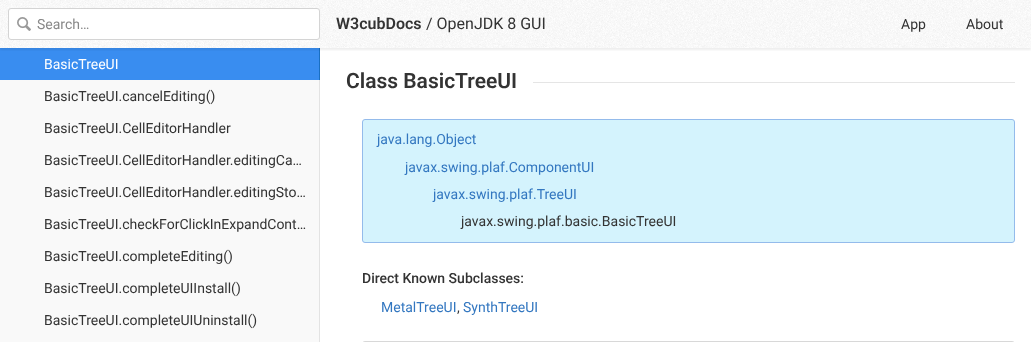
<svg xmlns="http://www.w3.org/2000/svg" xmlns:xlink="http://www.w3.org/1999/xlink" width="1031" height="342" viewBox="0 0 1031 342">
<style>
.cls-1{font:14px Roboto;fill:#888888}
.cls-2{font:600 16px Roboto;fill:#333333}
.cls-3{font:16px Roboto;fill:#333333}
.cls-4{font:14px Roboto;fill:#333333}
.cls-5{font:14px Roboto;fill:#ffffff}
.cls-6{font:600 21px Roboto;fill:#333333}
.cls-7{font:14px Roboto;fill:#3377c0}
.cls-8{font:500 14px Roboto;fill:#333333}
</style>
<defs>
<clipPath id="clip1"><rect x="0" y="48" width="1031" height="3"/></clipPath>
</defs>
<rect width="100%" height="100%" fill="#ffffff"/>
<rect fill="#398df0" x="0" y="48" width="319" height="32"/>
<rect fill="#196fc2" x="319" y="48" width="1" height="32"/>
<g clip-path="url(#clip1)">
<rect fill="#000000" fill-opacity="0.07" filter="blur(1px)" x="0" y="2" width="1031" height="48"/>
</g>
<image xlink:href="image0.png" x="0" y="0" width="1031" height="48"/>
<rect fill="#ffffff" stroke="#d4d4d4" x="8.5" y="8.5" width="311" height="31" rx="2.5"/>
<image xlink:href="image1.png" x="17" y="17" width="14" height="14"/>
<rect fill="#f9f9f9" x="0" y="80" width="319" height="256"/>
<rect fill="#e3e3e3" x="319" y="80" width="1" height="256"/>
<rect fill="#f9f9f9" x="0" y="336" width="320" height="6"/>
<rect fill="#e3e3e3" x="319" y="336" width="1" height="6"/>
<rect fill="#e5e5e5" x="533" y="82" width="482" height="1"/>
<rect fill="#d4f3fd" stroke="#94bbeb" x="362.5" y="119.5" width="652" height="123" rx="2.5"/>
<rect fill="none" stroke="#d8d8d8" x="362.5" y="341.5" width="652" height="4" rx="2.5"/>
<text class="cls-1" x="37" y="29">Search…</text>
<text class="cls-2" x="336" y="29">W3cubDocs</text>
<text class="cls-3" x="426" y="29">/ OpenJDK 8 GUI</text>
<text class="cls-4" x="901" y="29">App</text>
<text class="cls-4" x="966" y="29">About</text>
<text class="cls-5" x="44" y="69">BasicTreeUI</text>
<text class="cls-4" x="44" y="101">BasicTreeUI.cancelEditing()</text>
<text class="cls-4" x="44" y="133">BasicTreeUI.CellEditorHandler</text>
<text class="cls-4" x="44" y="165">BasicTreeUI.CellEditorHandler.editingCa…</text>
<text class="cls-4" x="44" y="197">BasicTreeUI.CellEditorHandler.editingSto…</text>
<text class="cls-4" x="44" y="229">BasicTreeUI.checkForClickInExpandCont…</text>
<text class="cls-4" x="44" y="261">BasicTreeUI.completeEditing()</text>
<text class="cls-4" x="44" y="293">BasicTreeUI.completeUIInstall()</text>
<text class="cls-4" x="44" y="325">BasicTreeUI.completeUIUninstall()</text>
<text class="cls-6" x="346" y="88">Class BasicTreeUI</text>
<text class="cls-7" x="377" y="144">java.lang.Object</text>
<text class="cls-7" x="405" y="172">javax.swing.plaf.ComponentUI</text>
<text class="cls-7" x="433" y="199">javax.swing.plaf.TreeUI</text>
<text class="cls-4" x="461" y="226">javax.swing.plaf.basic.BasicTreeUI</text>
<text class="cls-8" x="362" y="283">Direct Known Subclasses:</text>
<text class="cls-7" x="381" y="312">MetalTreeUI</text>
<text class="cls-4" x="457" y="312">,</text>
<text class="cls-7" x="463" y="312">SynthTreeUI</text>
</svg>
